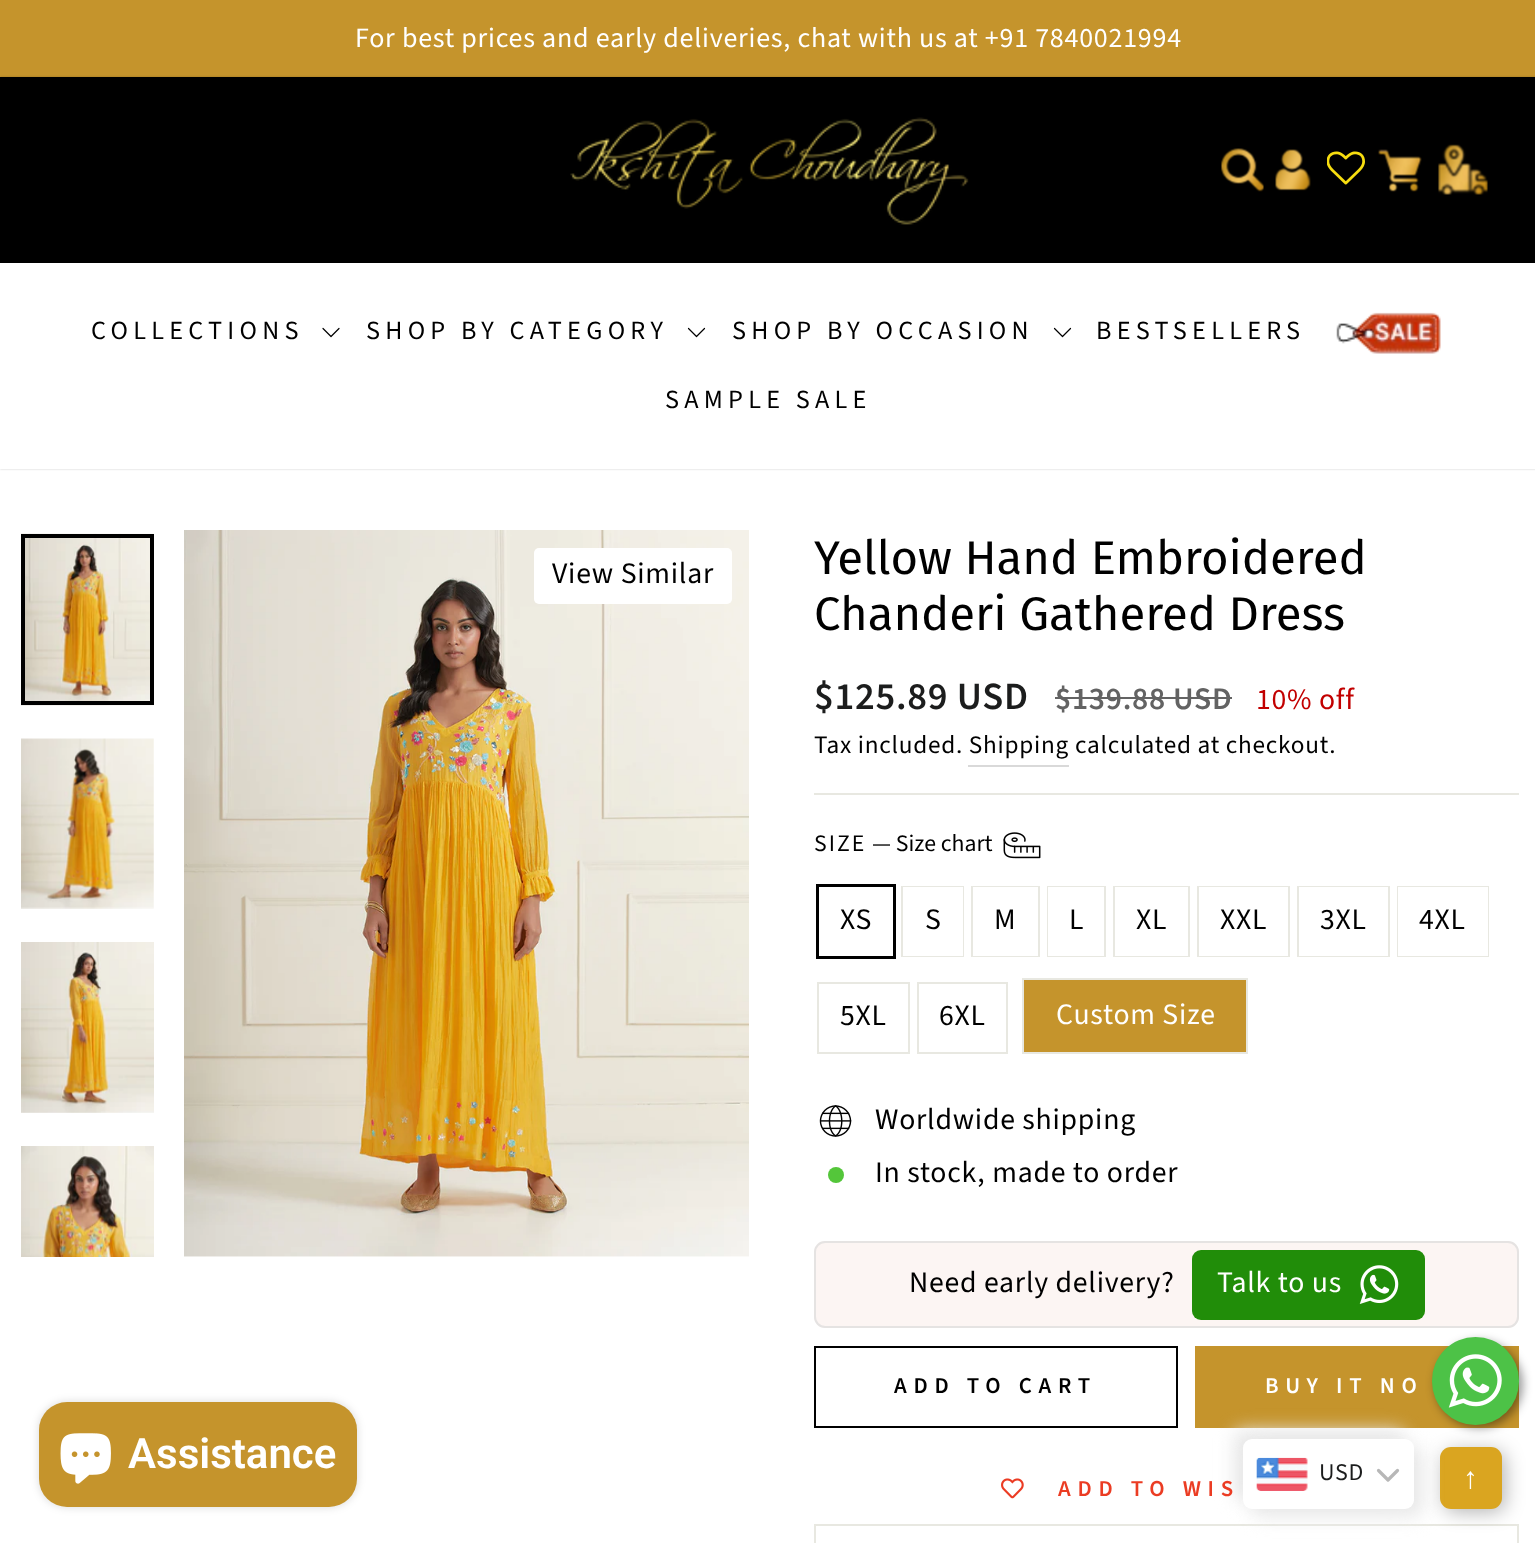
<svg xmlns="http://www.w3.org/2000/svg" xmlns:xlink="http://www.w3.org/1999/xlink" width="1535" height="1543" viewBox="0 0 1535 1543">
<style>
.cls-1{font:28px Source Sans Pro;letter-spacing:0.75px;fill:#ffffff}
.cls-2{font:26.25px Source Sans Pro;letter-spacing:5.25px;fill:#000000}
.cls-3{font:29.75px Source Sans Pro;letter-spacing:0.75px;fill:#000000}
.cls-4{font:47.25px Fira Sans;fill:#000000}
.cls-5{font:600 38.5px Source Sans Pro;letter-spacing:0.75px;fill:#1c1d1d}
.cls-6{font:600 31.5px Source Sans Pro;letter-spacing:0.75px;fill:#636363}
.cls-7{font:29.75px Source Sans Pro;letter-spacing:0.75px;fill:#c20000}
.cls-8{font:25.25px Source Sans Pro;letter-spacing:0.75px;fill:#000000}
.cls-9{font:23.75px Source Sans Pro;letter-spacing:2px;fill:#000000}
.cls-10{font:23.75px Source Sans Pro;fill:#000000}
.cls-11{font:29.75px Source Sans Pro;letter-spacing:0.75px;fill:#ffffff}
.cls-12{font:600 22.75px Source Sans Pro;letter-spacing:6.75px;fill:#000000}
.cls-13{font:600 22.75px Source Sans Pro;letter-spacing:6.75px;fill:#ffffff}
.cls-14{font:600 22.75px Source Sans Pro;letter-spacing:6.75px;fill:#eb3c23}
.cls-15{font:600 42px Roboto;fill:#ffffff}
.cls-16{font:24px Source Sans Pro;letter-spacing:0.75px;fill:#1c1d1d}
.cls-17{font:bold 29.75px Liberation Sans;letter-spacing:0.75px;fill:#ffffff}
</style>
<defs>
<clipPath id="clip1"><path d="M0 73H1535V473H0ZM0 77H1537V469H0Z" clip-rule="evenodd"/></clipPath>
</defs>
<rect width="100%" height="100%" fill="#ffffff"/>
<rect fill="#c5942c" x="0" y="0" width="1535" height="77"/>
<g clip-path="url(#clip1)">
<rect fill="#000000" fill-opacity="0.2" filter="blur(1px)" x="0" y="77" width="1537" height="392"/>
</g>
<rect fill="#000000" x="0" y="77" width="1535" height="186"/>
<image xlink:href="image0.png" x="570" y="117" width="399" height="108"/>
<image xlink:href="image1.png" x="1221" y="148" width="43" height="44"/>
<image xlink:href="image2.png" x="1275" y="149" width="36" height="42"/>
<image xlink:href="image3.png" x="1327" y="151" width="38" height="34"/>
<image xlink:href="image4.png" x="1378" y="149" width="44" height="43"/>
<image xlink:href="image5.png" x="1438" y="144" width="50" height="51"/>
<path fill="none" stroke="#000000" stroke-width="1.2" stroke-linecap="round" stroke-linejoin="round" d="M323 328.5L331 336.5L339 328.5"/>
<path fill="none" stroke="#000000" stroke-width="1.2" stroke-linecap="round" stroke-linejoin="round" d="M688.5 328.5L696.5 336.5L704.5 328.5"/>
<path fill="none" stroke="#000000" stroke-width="1.2" stroke-linecap="round" stroke-linejoin="round" d="M1054.5 328.5L1062.5 336.5L1070.5 328.5"/>
<image xlink:href="image6.png" x="1336" y="312" width="105" height="42"/>
<image xlink:href="image7.png" x="21" y="533" width="133" height="173"/>
<rect fill="none" stroke="#000000" stroke-width="4" x="23" y="536" width="129" height="167"/>
<image xlink:href="image8.png" x="21" y="738" width="133" height="171"/>
<image xlink:href="image9.png" x="21" y="942" width="133" height="171"/>
<image xlink:href="image10.png" x="21" y="1146" width="133" height="111"/>
<image xlink:href="image11.png" x="184" y="530" width="565" height="727"/>
<rect fill="#ffffff" x="534" y="548" width="198" height="56" rx="5"/>
<rect fill="#636363" x="1055" y="697" width="177" height="2"/>
<rect fill="#d9d9d9" x="968" y="765" width="101" height="2"/>
<rect fill="#e8e8e1" x="814" y="793" width="705" height="2"/>
<image xlink:href="image12.png" x="1003" y="832" width="38" height="27"/>
<rect fill="none" stroke="#000000" stroke-width="4" x="818" y="886" width="76" height="71"/>
<rect fill="#ffffff" x="819" y="887" width="74" height="69"/>
<rect fill="none" stroke="#e8e8e1" stroke-width="2" x="902" y="887" width="61" height="69"/>
<rect fill="#ffffff" x="903" y="887" width="60" height="69"/>
<rect fill="none" stroke="#e8e8e1" stroke-width="2" x="972" y="887" width="67" height="69"/>
<rect fill="#ffffff" x="973" y="887" width="65" height="69"/>
<rect fill="none" stroke="#e8e8e1" stroke-width="2" x="1048" y="887" width="57" height="69"/>
<rect fill="#ffffff" x="1048" y="887" width="56" height="69"/>
<rect fill="none" stroke="#e8e8e1" stroke-width="2" x="1114" y="887" width="75" height="69"/>
<rect fill="#ffffff" x="1115" y="887" width="73" height="69"/>
<rect fill="none" stroke="#e8e8e1" stroke-width="2" x="1198" y="887" width="91" height="69"/>
<rect fill="#ffffff" x="1199" y="887" width="89" height="69"/>
<rect fill="none" stroke="#e8e8e1" stroke-width="2" x="1298" y="887" width="91" height="69"/>
<rect fill="#ffffff" x="1299" y="887" width="89" height="69"/>
<rect fill="none" stroke="#e8e8e1" stroke-width="2" x="1398" y="887" width="90" height="69"/>
<rect fill="#ffffff" x="1398" y="887" width="90" height="69"/>
<rect fill="none" stroke="#e8e8e1" stroke-width="2" x="818" y="983" width="91" height="70"/>
<rect fill="none" stroke="#e8e8e1" stroke-width="2" x="918" y="983" width="89" height="70"/>
<rect fill="none" stroke="#e8e8e1" stroke-width="2" x="1023" y="979" width="224" height="74"/>
<rect fill="#c5942c" x="1024" y="980" width="222" height="72"/>
<image xlink:href="image13.png" x="819" y="1105" width="33" height="32"/>
<circle fill="#54c63a" cx="836" cy="1175" r="8"/>
<rect fill="#fcf5f3" x="814" y="1241" width="705" height="87" rx="11"/>
<rect fill="none" stroke="#d9d9d9" stroke-opacity="0.66" stroke-width="2" x="815" y="1242" width="703" height="85" rx="10"/>
<rect fill="#218d09" x="1192" y="1250" width="233" height="70" rx="9"/>
<image xlink:href="image14.png" x="1359" y="1265" width="40" height="39"/>
<rect fill="none" stroke="#000000" stroke-width="2" x="815" y="1347" width="362" height="80"/>
<rect fill="#c5942c" x="1195" y="1346" width="324" height="82"/>
<image xlink:href="image15.png" x="1001" y="1478" width="23" height="21"/>
<rect fill="#e8e8e1" x="814" y="1524" width="705" height="2"/>
<rect fill="#e8e8e1" x="1517" y="1524" width="2" height="19"/>
<rect fill="#e8e8e1" x="814" y="1524" width="2" height="19"/>
<rect fill="#000000" fill-opacity="0.4" filter="blur(5px)" x="1435" y="1341" width="88" height="87" rx="43.5"/>
<rect fill="#000000" fill-opacity="0.3" filter="blur(9.5px)" x="1444" y="1451" width="61" height="61" rx="11"/>
<rect fill="#4dc247" x="1432" y="1337" width="87" height="88" rx="43.5"/>
<image xlink:href="image16.png" x="1448" y="1354" width="54" height="54"/>
<rect fill="#000000" fill-opacity="0.15" filter="blur(4.5px)" x="39" y="1402" width="318" height="105" rx="28"/>
<rect fill="#c5942c" x="39" y="1402" width="318" height="105" rx="28"/>
<image xlink:href="image17.png" x="60" y="1433" width="51" height="51"/>
<rect fill="#e8e8e8" filter="blur(9px)" x="1234" y="1430" width="171" height="70" rx="9"/>
<rect fill="#daa520" x="1440" y="1447" width="62" height="62" rx="11"/>
<rect fill="#e8e8e8" filter="blur(9px)" x="1251" y="1447" width="172" height="70" rx="9"/>
<rect fill="#ffffff" x="1243" y="1439" width="171" height="70" rx="9"/>
<image xlink:href="image18.png" x="1256" y="1457" width="52" height="34"/>
<path fill="none" stroke="#b7b7b7" stroke-width="3.2" stroke-linecap="round" stroke-linejoin="round" d="M1378.5 1470.5L1388 1480L1397.5 1470.5"/>
<text class="cls-1" x="355" y="47">For best prices and early deliveries, chat with us at +91 7840021994</text>
<text class="cls-2" x="91" y="339">COLLECTIONS</text>
<text class="cls-2" x="366" y="339">SHOP BY CATEGORY</text>
<text class="cls-2" x="732" y="339">SHOP BY OCCASION</text>
<text class="cls-2" x="1096" y="339">BESTSELLERS</text>
<text class="cls-2" x="665" y="408">SAMPLE SALE</text>
<text class="cls-3" x="552" y="583">View Similar</text>
<text class="cls-4"><tspan x="814" y="574">Yellow Hand Embroidered</tspan><tspan x="814" y="630">Chanderi Gathered Dress</tspan></text>
<text class="cls-5" x="814" y="709">$125.89 USD</text>
<text class="cls-6" x="1055" y="709">$139.88 USD</text>
<text class="cls-7" x="1256" y="709">10% off</text>
<text class="cls-8" x="814" y="753">Tax included. Shipping</text>
<text class="cls-8" x="1075" y="753">calculated at checkout.</text>
<text class="cls-9" x="814" y="851">SIZE</text>
<text class="cls-10" x="872" y="851">— Size chart</text>
<text class="cls-3" x="840" y="929">XS</text>
<text class="cls-3" x="925" y="929">S</text>
<text class="cls-3" x="994" y="929">M</text>
<text class="cls-3" x="1069" y="929">L</text>
<text class="cls-3" x="1136" y="929">XL</text>
<text class="cls-3" x="1220" y="929">XXL</text>
<text class="cls-3" x="1320" y="929">3XL</text>
<text class="cls-3" x="1419" y="929">4XL</text>
<text class="cls-3" x="840" y="1025">5XL</text>
<text class="cls-3" x="939" y="1025">6XL</text>
<text class="cls-11" x="1056" y="1024">Custom Size</text>
<text class="cls-3"><tspan x="875" y="1129">Worldwide shipping</tspan><tspan x="875" y="1182">In stock, made to order</tspan></text>
<text class="cls-3" x="909" y="1292">Need early delivery?</text>
<text class="cls-11" x="1217" y="1292">Talk to us</text>
<text class="cls-12" x="894" y="1393">ADD TO CART</text>
<text class="cls-13" x="1265" y="1393">BUY IT NO</text>
<text class="cls-14" x="1058" y="1496">ADD TO WIS</text>
<text class="cls-15" x="128" y="1468">Assistance</text>
<text class="cls-16" x="1319" y="1480">USD</text>
<text class="cls-17" x="1463" y="1488">↑</text>
</svg>
